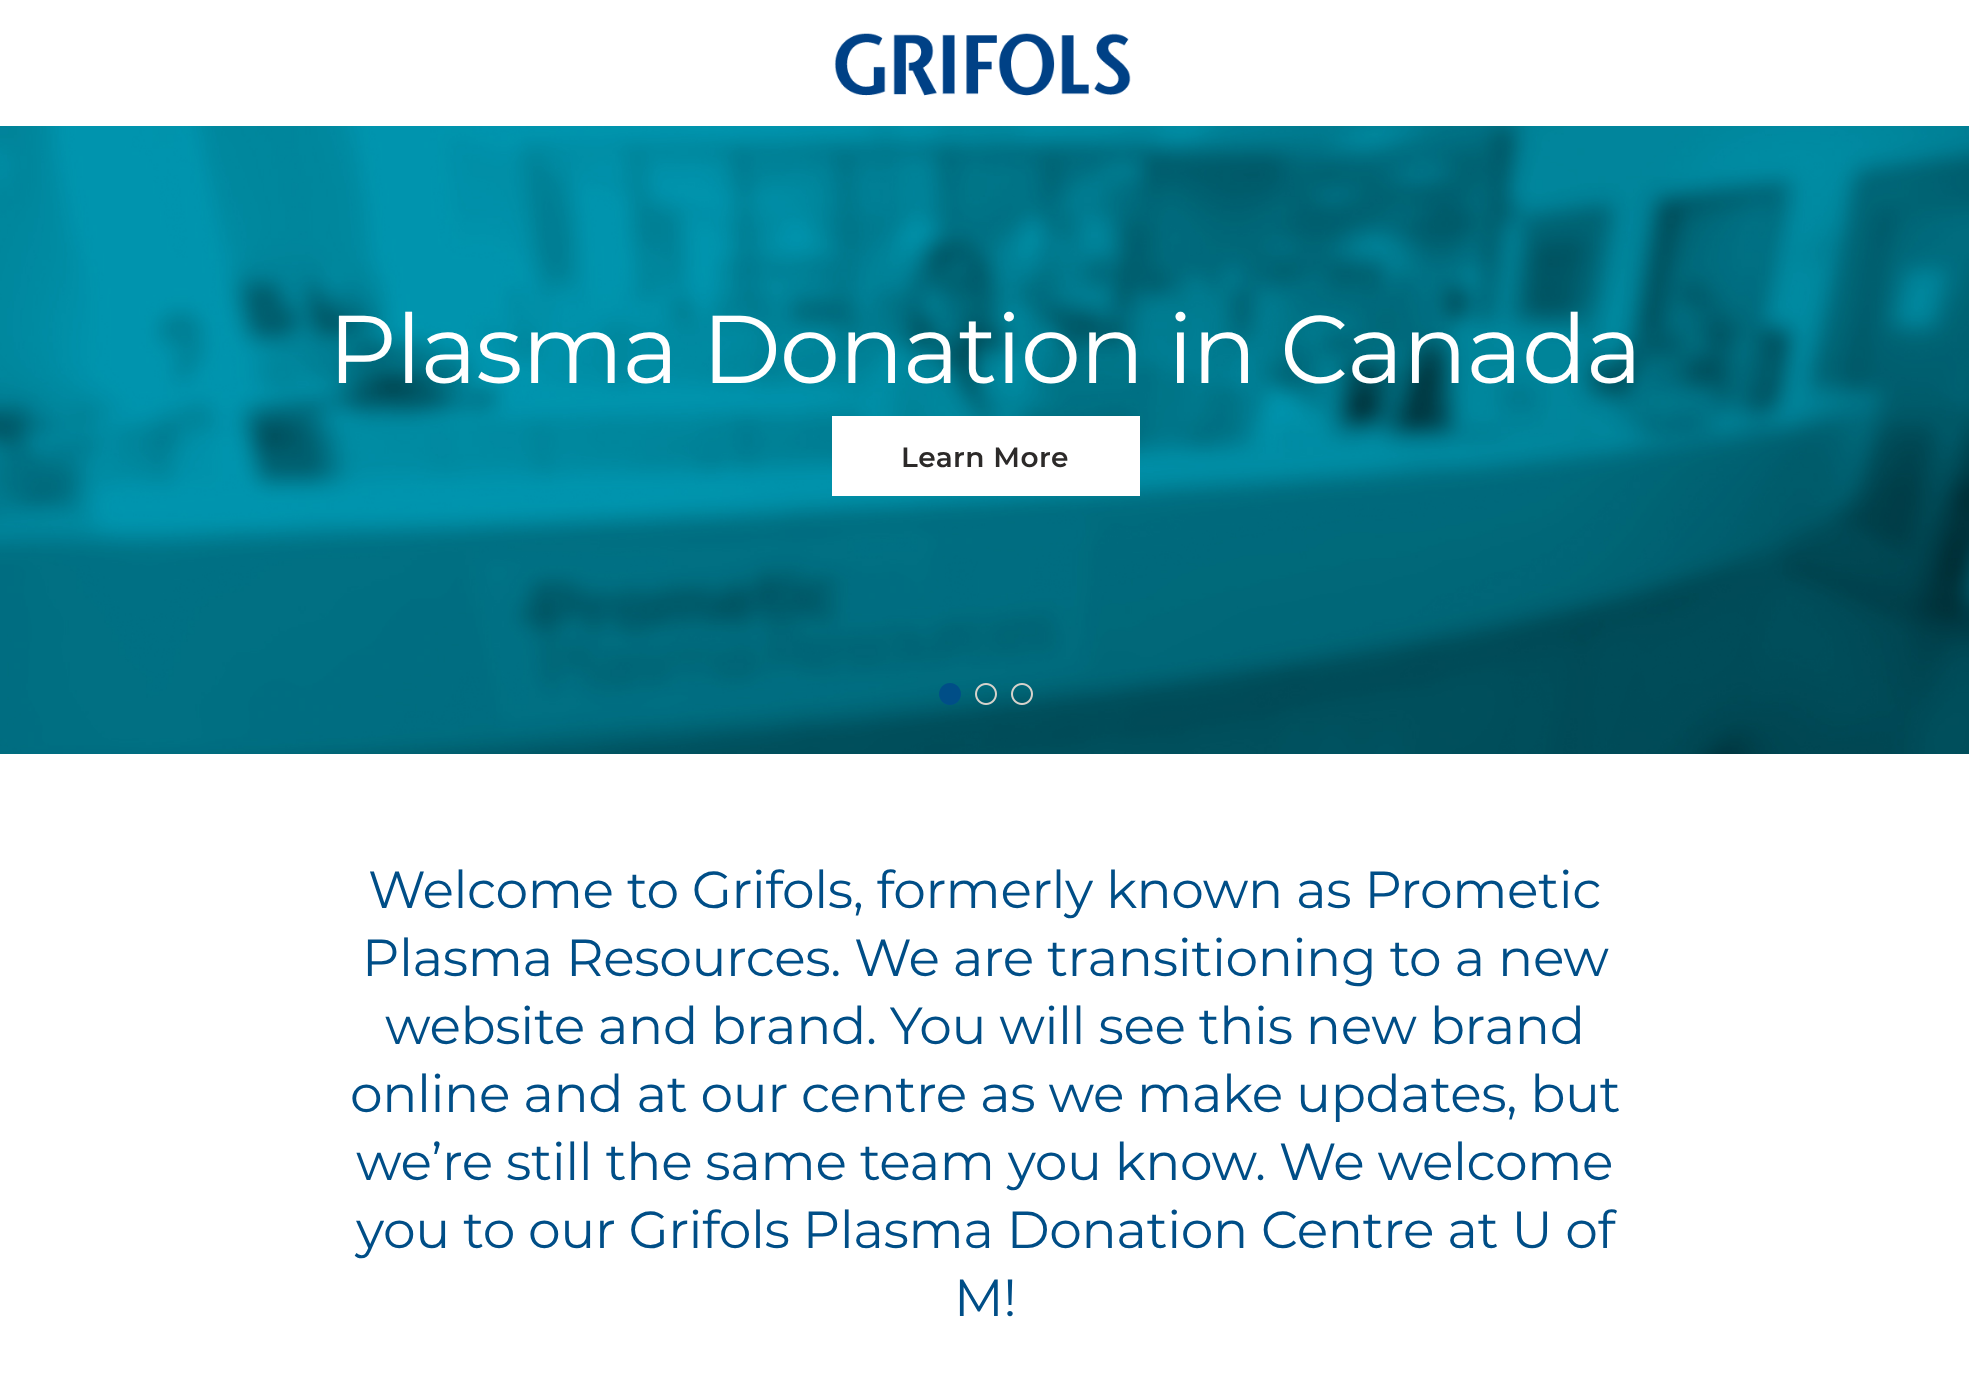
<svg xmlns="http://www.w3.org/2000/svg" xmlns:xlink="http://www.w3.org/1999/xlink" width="1969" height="1399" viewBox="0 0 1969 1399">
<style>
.cls-1{font:96px Montserrat;letter-spacing:-1.15px;fill:#ffffff}
.cls-2{font:600 28px Montserrat;letter-spacing:0.5px;fill:#2c2a29}
.cls-3{font:52px Montserrat;letter-spacing:-0.4px;fill:#004e87}
</style>
<rect width="100%" height="100%" fill="#ffffff"/>
<image xlink:href="image0.png" x="834" y="33" width="297" height="63"/>
<image xlink:href="image1.png" x="0" y="126" width="1969" height="628"/>
<rect fill="#ffffff" x="832" y="416" width="308" height="80"/>
<image xlink:href="image2.png" x="939" y="683" width="22" height="22"/>
<image xlink:href="image3.png" x="975" y="683" width="22" height="22"/>
<image xlink:href="image4.png" x="1011" y="683" width="22" height="22"/>
<text class="cls-1" x="328" y="383">Plasma Donation in Canada</text>
<text class="cls-2" x="901" y="467">Learn More</text>
<text class="cls-3" x="368" y="908">Welcome to Grifols, formerly known as Prometic</text>
<text class="cls-3" x="362" y="976">Plasma Resources. We are transitioning to a new</text>
<text class="cls-3" x="385" y="1044">website and brand. You will see this new brand</text>
<text class="cls-3" x="350" y="1112">online and at our centre as we make updates, but</text>
<text class="cls-3"><tspan x="356" y="1180">we’re still the same team you know. We welcome</tspan><tspan x="356" y="1248">you to our Grifols Plasma Donation Centre at U of</tspan></text>
<text class="cls-3" x="954" y="1316">M!</text>
</svg>
